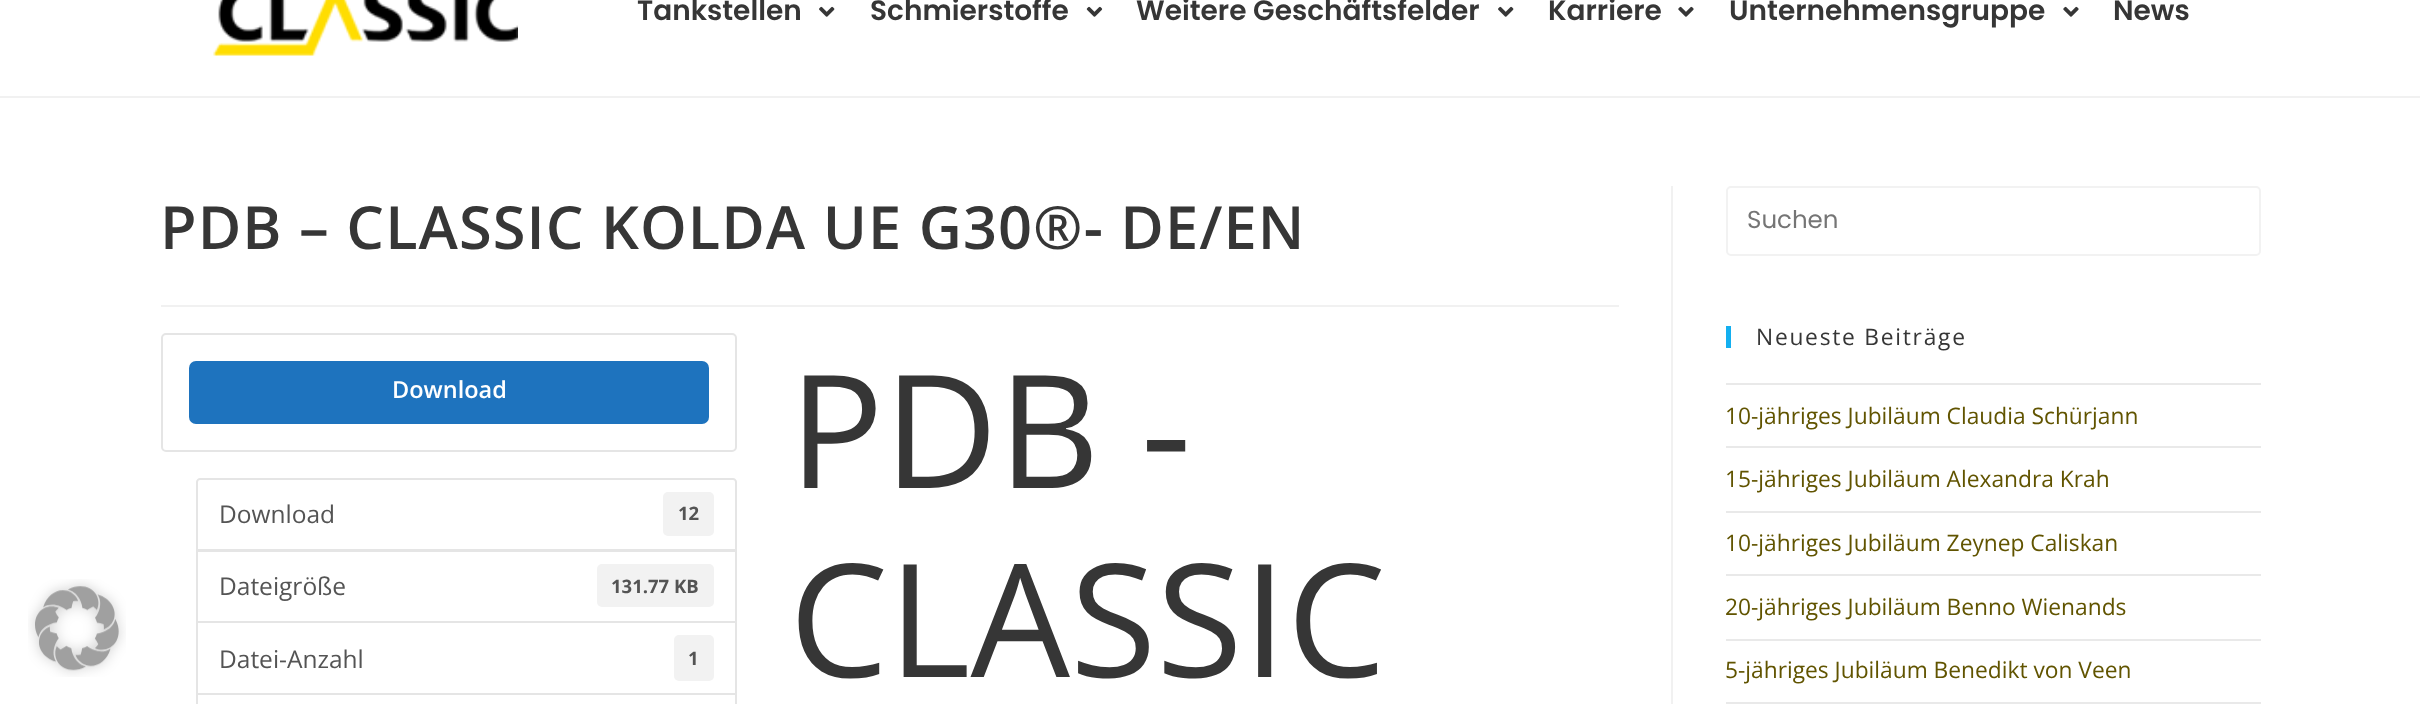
<svg xmlns="http://www.w3.org/2000/svg" xmlns:xlink="http://www.w3.org/1999/xlink" width="2420" height="704" viewBox="0 0 2420 704">
<style>
.cls-1{font:600 28px Poppins;fill:#363636}
.cls-2{font:600 59.5px Open Sans;letter-spacing:1.05px;fill:#363636}
.cls-3{font:600 23.5px Open Sans;fill:#ffffff}
.cls-4{font:24.5px Open Sans;fill:#545454}
.cls-5{font:bold 18.5px Open Sans;fill:#545454}
.cls-6{font:157.5px Open Sans;fill:#363636}
.cls-7{font:24.5px Poppins;fill:#757575}
.cls-8{font:22.75px Open Sans;letter-spacing:1.75px;fill:#363636}
.cls-9{font:22.75px Open Sans;fill:#615400}
</style>
<rect width="100%" height="100%" fill="#ffffff"/>
<image xlink:href="image0.png" x="28" y="579" width="98" height="98"/>
<rect fill="#f1f1f1" x="0" y="96" width="2420" height="2"/>
<image xlink:href="image1.png" x="213" y="0" width="305" height="56"/>
<image xlink:href="image2.png" x="819" y="6" width="16" height="11"/>
<image xlink:href="image3.png" x="1086" y="6" width="17" height="11"/>
<image xlink:href="image2.png" x="1498" y="6" width="16" height="11"/>
<image xlink:href="image4.png" x="1678" y="6" width="16" height="11"/>
<image xlink:href="image4.png" x="2063" y="6" width="16" height="11"/>
<rect fill="#f1f1f1" x="1671" y="186" width="2" height="518"/>
<rect fill="#f1f1f1" x="161" y="305" width="1458" height="2"/>
<rect fill="none" stroke="#e5e5e5" stroke-width="2" x="162" y="334" width="574" height="117" rx="4"/>
<rect fill="#1e73be" x="189" y="361" width="520" height="63" rx="7"/>
<path fill="none" stroke="#e5e5e5" stroke-width="2" d="M200 479H733C734.5 479 736 480.5 736 482V550H197V482C197 480.5 198.5 479 200 479Z"/>
<rect fill="#f2f2f2" x="663" y="492" width="51" height="44" rx="5"/>
<rect fill="none" stroke="#e5e5e5" stroke-width="2" x="197" y="551" width="539" height="71"/>
<rect fill="#f2f2f2" x="597" y="564" width="117" height="43" rx="5"/>
<rect fill="none" stroke="#e5e5e5" stroke-width="2" x="197" y="622" width="539" height="72"/>
<rect fill="#f2f2f2" x="674" y="635" width="40" height="46" rx="5"/>
<rect fill="none" stroke="#e5e5e5" stroke-width="2" x="197" y="694" width="539" height="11"/>
<rect fill="none" stroke="#f2f2f2" stroke-width="2" x="1727" y="187" width="533" height="68" rx="4"/>
<rect fill="#13aff0" x="1726" y="326" width="5" height="22"/>
<rect fill="#e9e9e9" x="1726" y="383" width="535" height="2"/>
<rect fill="#e9e9e9" x="1726" y="446" width="535" height="2"/>
<rect fill="#e9e9e9" x="1726" y="511" width="535" height="2"/>
<rect fill="#e9e9e9" x="1726" y="574" width="535" height="2"/>
<rect fill="#e9e9e9" x="1726" y="639" width="535" height="2"/>
<rect fill="#e9e9e9" x="1726" y="702" width="535" height="2"/>
<text class="cls-1" x="637" y="20">Tankstellen</text>
<text class="cls-1" x="870" y="20">Schmierstoffe</text>
<text class="cls-1" x="1136" y="20">Weitere Geschäftsfelder</text>
<text class="cls-1" x="1548" y="20">Karriere</text>
<text class="cls-1" x="1729" y="20">Unternehmensgruppe</text>
<text class="cls-1" x="2113" y="20">News</text>
<text class="cls-2" x="160" y="249">PDB – CLASSIC KOLDA UE G30®- DE/EN</text>
<text class="cls-3" x="392" y="398">Download</text>
<text class="cls-4" x="219" y="523">Download</text>
<text class="cls-5" x="678" y="520">12</text>
<text class="cls-4" x="219" y="595">Dateigröße</text>
<text class="cls-5" x="611" y="593">131.77 KB</text>
<text class="cls-4" x="219" y="668">Datei-Anzahl</text>
<text class="cls-5" x="688" y="665">1</text>
<text class="cls-6"><tspan x="789" y="488">PDB -</tspan><tspan x="789" y="677">CLASSIC</tspan></text>
<text class="cls-7" x="1747" y="228">Suchen</text>
<text class="cls-8" x="1756" y="345">Neueste Beiträge</text>
<text class="cls-9" x="1725" y="424">10-jähriges Jubiläum Claudia Schürjann</text>
<text class="cls-9" x="1725" y="487">15-jähriges Jubiläum Alexandra Krah</text>
<text class="cls-9" x="1725" y="551">10-jähriges Jubiläum Zeynep Caliskan</text>
<text class="cls-9" x="1725" y="615">20-jähriges Jubiläum Benno Wienands</text>
<text class="cls-9" x="1725" y="678">5-jähriges Jubiläum Benedikt von Veen</text>
</svg>
